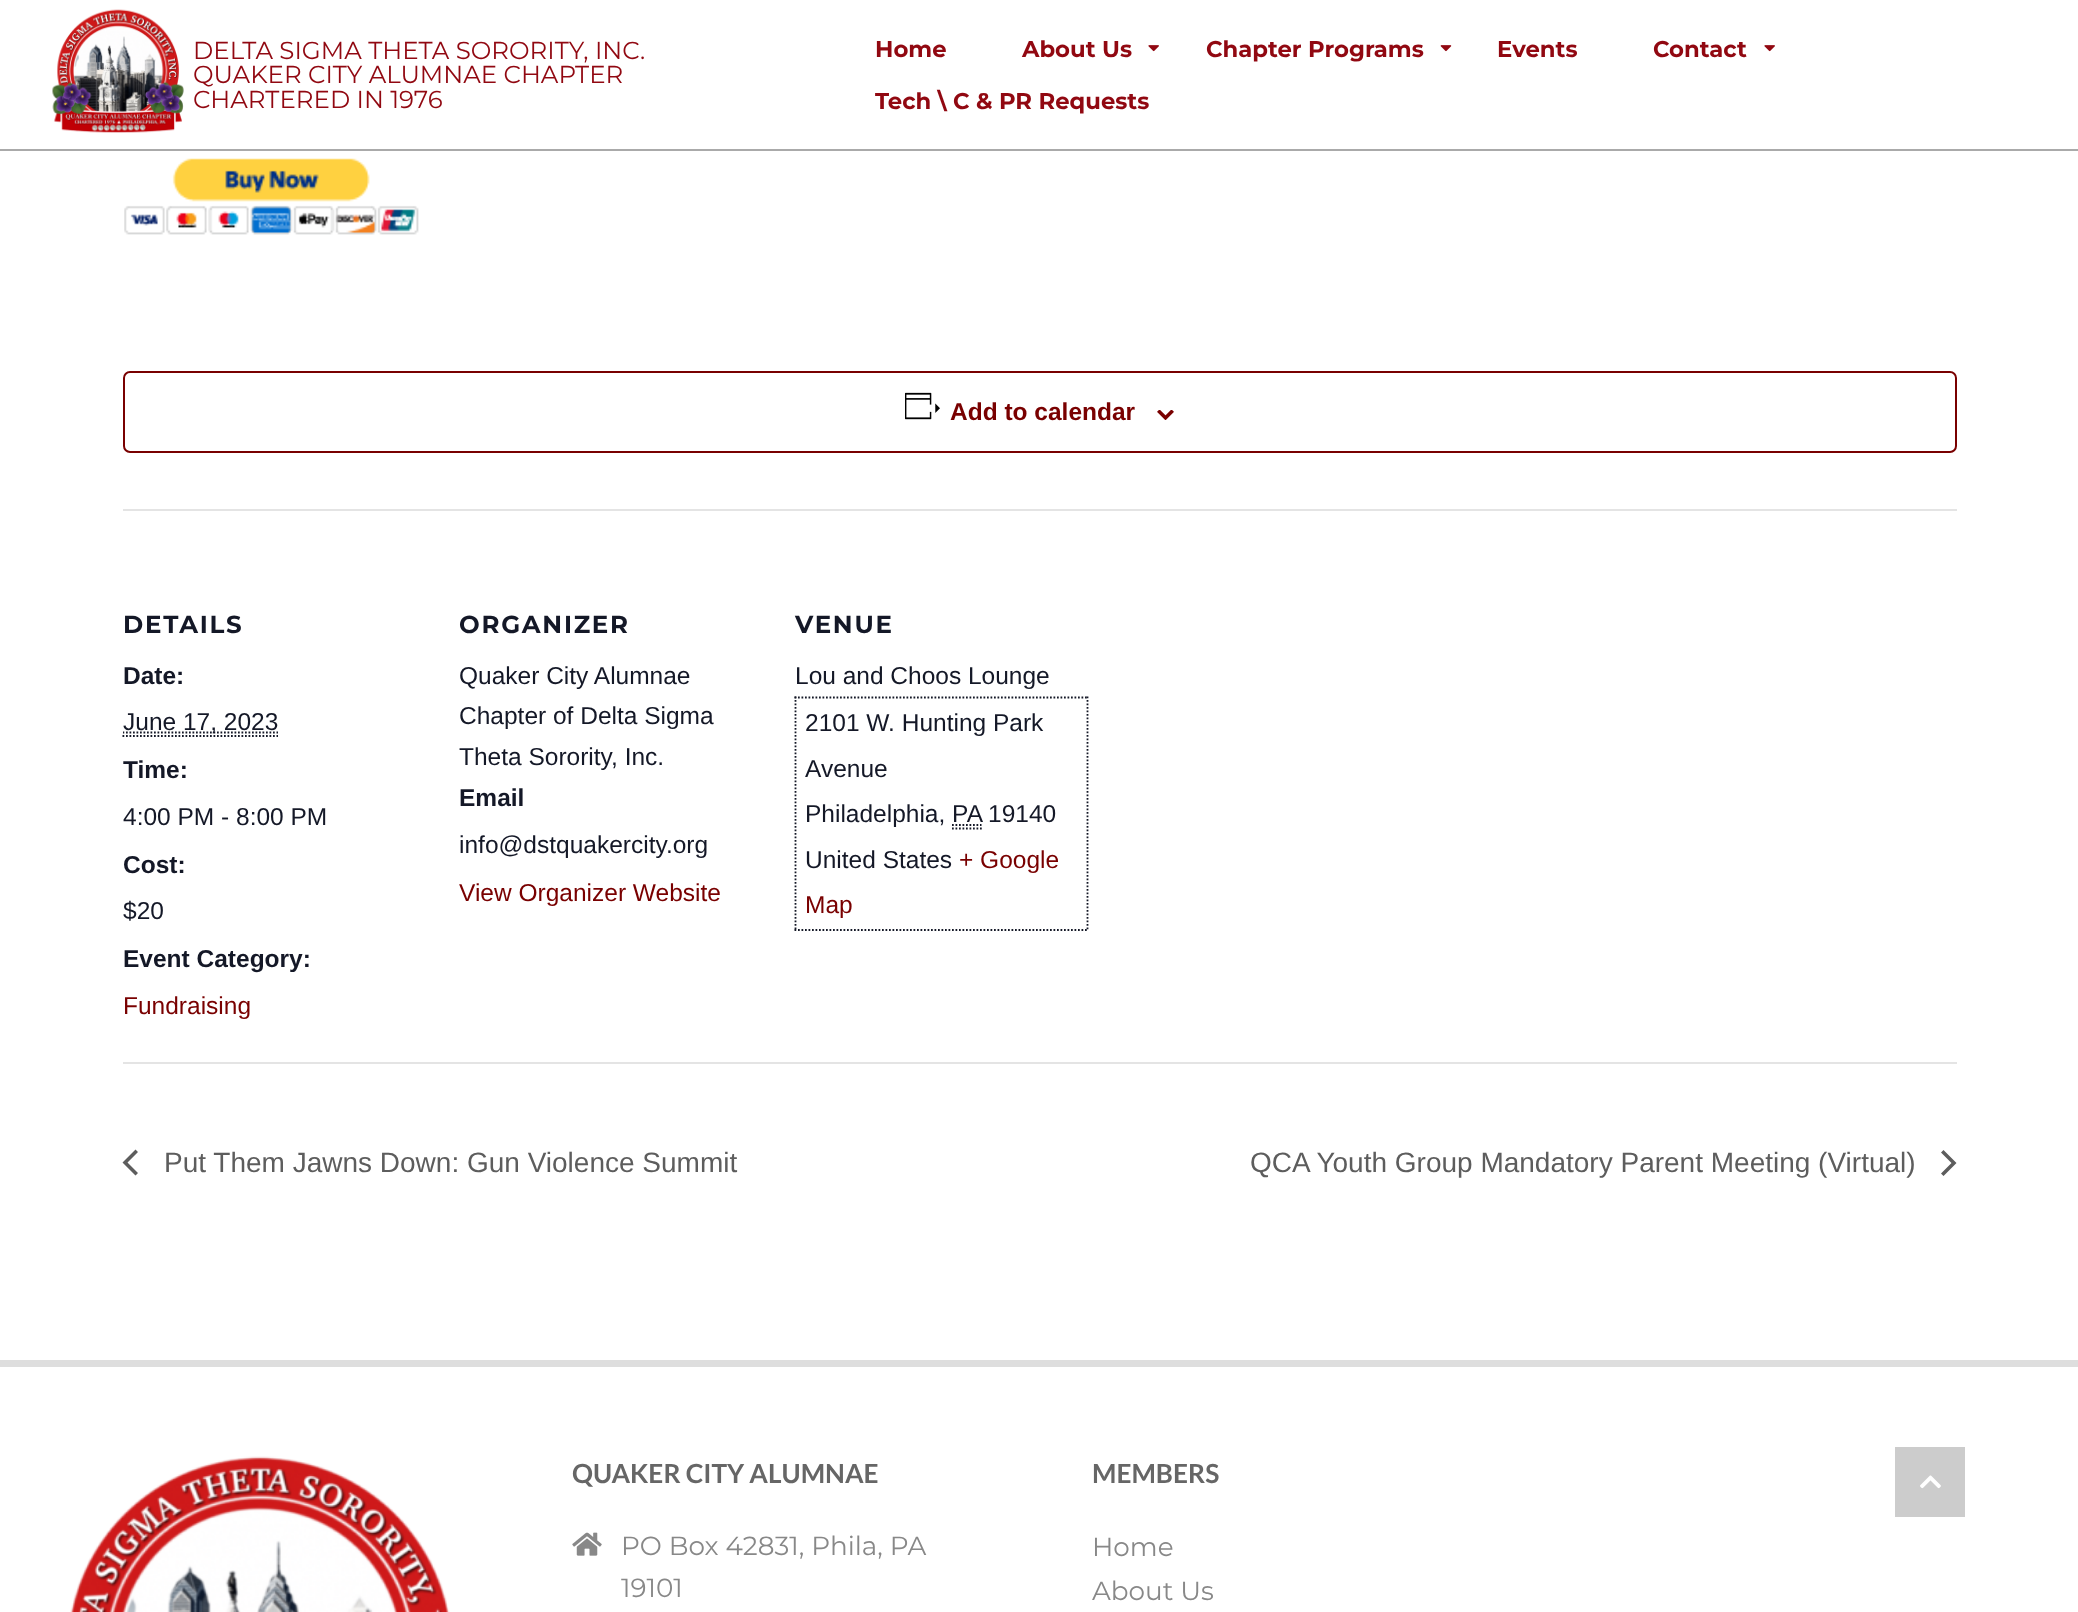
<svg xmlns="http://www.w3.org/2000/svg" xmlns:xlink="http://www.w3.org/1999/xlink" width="2078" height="1612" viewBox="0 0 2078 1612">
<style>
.cls-1{font:24.5px Montserrat;fill:#910811}
.cls-2{font:bold 22.75px Montserrat;fill:#910811}
.cls-3{font:bold 24.5px Liberation Sans;fill:#790000}
.cls-4{font:bold 24.5px Montserrat;letter-spacing:1.75px;fill:#141827}
.cls-5{font:bold 24.5px Liberation Sans;fill:#141827}
.cls-6{font:24.5px Liberation Sans;fill:#141827}
.cls-7{font:24.5px Liberation Sans;fill:#790000}
.cls-8{font:28px Liberation Sans;fill:#5d5d5d}
.cls-9{font:bold 26.25px Lato;fill:#666666}
.cls-10{font:26.25px Montserrat;fill:#888888}
</style>
<defs>
<clipPath id="clip1"><rect x="123" y="0" width="1834" height="1062"/></clipPath>
</defs>
<rect width="100%" height="100%" fill="#ffffff"/>
<rect fill="#aaaaaa" x="0" y="149" width="2078" height="2"/>
<image xlink:href="image0.png" x="52" y="9" width="132" height="124"/>
<image xlink:href="image1.png" x="1148" y="45" width="11" height="7"/>
<image xlink:href="image2.png" x="1440" y="45" width="12" height="7"/>
<image xlink:href="image1.png" x="1764" y="45" width="11" height="7"/>
<image xlink:href="image3.png" x="124" y="158" width="295" height="77"/>
<rect fill="none" stroke="#790000" stroke-width="2" x="124" y="372" width="1832" height="80" rx="6"/>
<image xlink:href="image4.png" x="905" y="392" width="35" height="28"/>
<image xlink:href="image5.png" x="1157" y="410" width="17" height="10"/>
<rect fill="#e4e4e4" x="123" y="509" width="1834" height="2"/>
<path fill="none" stroke="#141827" stroke-width="1.8" stroke-dasharray="1.75 1.75" d="M122.5 736H278"/>
<g clip-path="url(#clip1)">
<path fill="none" stroke="#141827" stroke-width="1.8" stroke-dasharray="1.75 1.75" d="M122.5 732.5H278"/>
</g>
<path fill="none" stroke="#141827" stroke-width="1.8" stroke-dasharray="1.75 1.75" d="M794.5 697.5H1088.5"/>
<path fill="none" stroke="#141827" stroke-width="1.8" stroke-dasharray="1.75 1.75" d="M1087.5 696.5V931"/>
<path fill="none" stroke="#141827" stroke-width="1.8" stroke-dasharray="1.75 1.75" d="M794.5 930H1088.5"/>
<path fill="none" stroke="#141827" stroke-width="1.8" stroke-dasharray="1.75 1.75" d="M795.5 696.5V931"/>
<path fill="none" stroke="#141827" stroke-width="1.8" stroke-dasharray="1.75 1.75" d="M952 828.5H982M952 825H981.5"/>
<rect fill="#e4e4e4" x="123" y="1062" width="1834" height="2"/>
<path fill="#5d5d5d" d="M138 1173L135.5 1175.5L122.5 1162.5L135.5 1149.5L138 1152L127.5 1162.5Z"/>
<path fill="#5d5d5d" d="M1941 1152.5L1943.5 1150L1956.5 1163L1943.5 1176L1941 1173.5L1951.5 1163Z"/>
<rect fill="#dedede" x="0" y="1360" width="2078" height="7"/>
<image xlink:href="image6.png" x="70" y="1456" width="380" height="156"/>
<image xlink:href="image7.png" x="572" y="1532" width="30" height="24"/>
<rect fill="#cccccc" x="1895" y="1447" width="70" height="70"/>
<image xlink:href="image8.png" x="1920" y="1475" width="21" height="14"/>
<text class="cls-1"><tspan x="193" y="59">DELTA SIGMA THETA SORORITY, INC.</tspan><tspan x="193" y="83">QUAKER CITY ALUMNAE CHAPTER</tspan><tspan x="193" y="108">CHARTERED IN 1976</tspan></text>
<text class="cls-2" x="875" y="57">Home</text>
<text class="cls-2" x="1022" y="57">About Us</text>
<text class="cls-2" x="1206" y="57">Chapter Programs</text>
<text class="cls-2" x="1497" y="57">Events</text>
<text class="cls-2" x="1653" y="57">Contact</text>
<text class="cls-2" x="875" y="109">Tech \ C &amp; PR Requests</text>
<text class="cls-3" x="950" y="420">Add to calendar</text>
<text class="cls-4" x="123" y="633">DETAILS</text>
<text class="cls-5" x="123" y="684">Date:</text>
<text class="cls-6" x="123" y="730">June 17, 2023</text>
<g clip-path="url(#clip1)">
<text class="cls-5" x="123" y="778">Time:</text>
</g>
<text class="cls-6" x="123" y="825">4:00 PM - 8:00 PM</text>
<text class="cls-5" x="123" y="873">Cost:</text>
<text class="cls-6" x="123" y="919">$20</text>
<text class="cls-5" x="123" y="967">Event Category:</text>
<text class="cls-7" x="123" y="1014">Fundraising</text>
<text class="cls-4" x="459" y="633">ORGANIZER</text>
<text class="cls-6"><tspan x="459" y="684">Quaker City Alumnae</tspan><tspan x="459" y="724">Chapter of Delta Sigma</tspan><tspan x="459" y="765">Theta Sorority, Inc.</tspan></text>
<text class="cls-5" x="459" y="806">Email</text>
<text class="cls-6" x="459" y="853">info@dstquakercity.org</text>
<text class="cls-7" x="459" y="901">View Organizer Website</text>
<text class="cls-4" x="795" y="633">VENUE</text>
<text class="cls-6" x="795" y="684">Lou and Choos Lounge</text>
<text class="cls-6"><tspan x="805" y="731">2101 W. Hunting Park</tspan><tspan x="805" y="777">Avenue</tspan><tspan x="805" y="822">Philadelphia, PA</tspan></text>
<text class="cls-6" x="988" y="822">19140</text>
<text class="cls-6" x="805" y="868">United States</text>
<text class="cls-7" x="959" y="868">+ Google</text>
<text class="cls-7" x="805" y="913">Map</text>
<text class="cls-8" x="164" y="1172">Put Them Jawns Down: Gun Violence Summit</text>
<text class="cls-8" x="1250" y="1172">QCA Youth Group Mandatory Parent Meeting (Virtual)</text>
<text class="cls-9" x="572" y="1483">QUAKER CITY ALUMNAE</text>
<text class="cls-10"><tspan x="621" y="1555">PO Box 42831, Phila, PA</tspan><tspan x="621" y="1597">19101</tspan></text>
<text class="cls-9" x="1092" y="1483">MEMBERS</text>
<text class="cls-10"><tspan x="1092" y="1556">Home</tspan><tspan x="1092" y="1600">About Us</tspan></text>
</svg>
